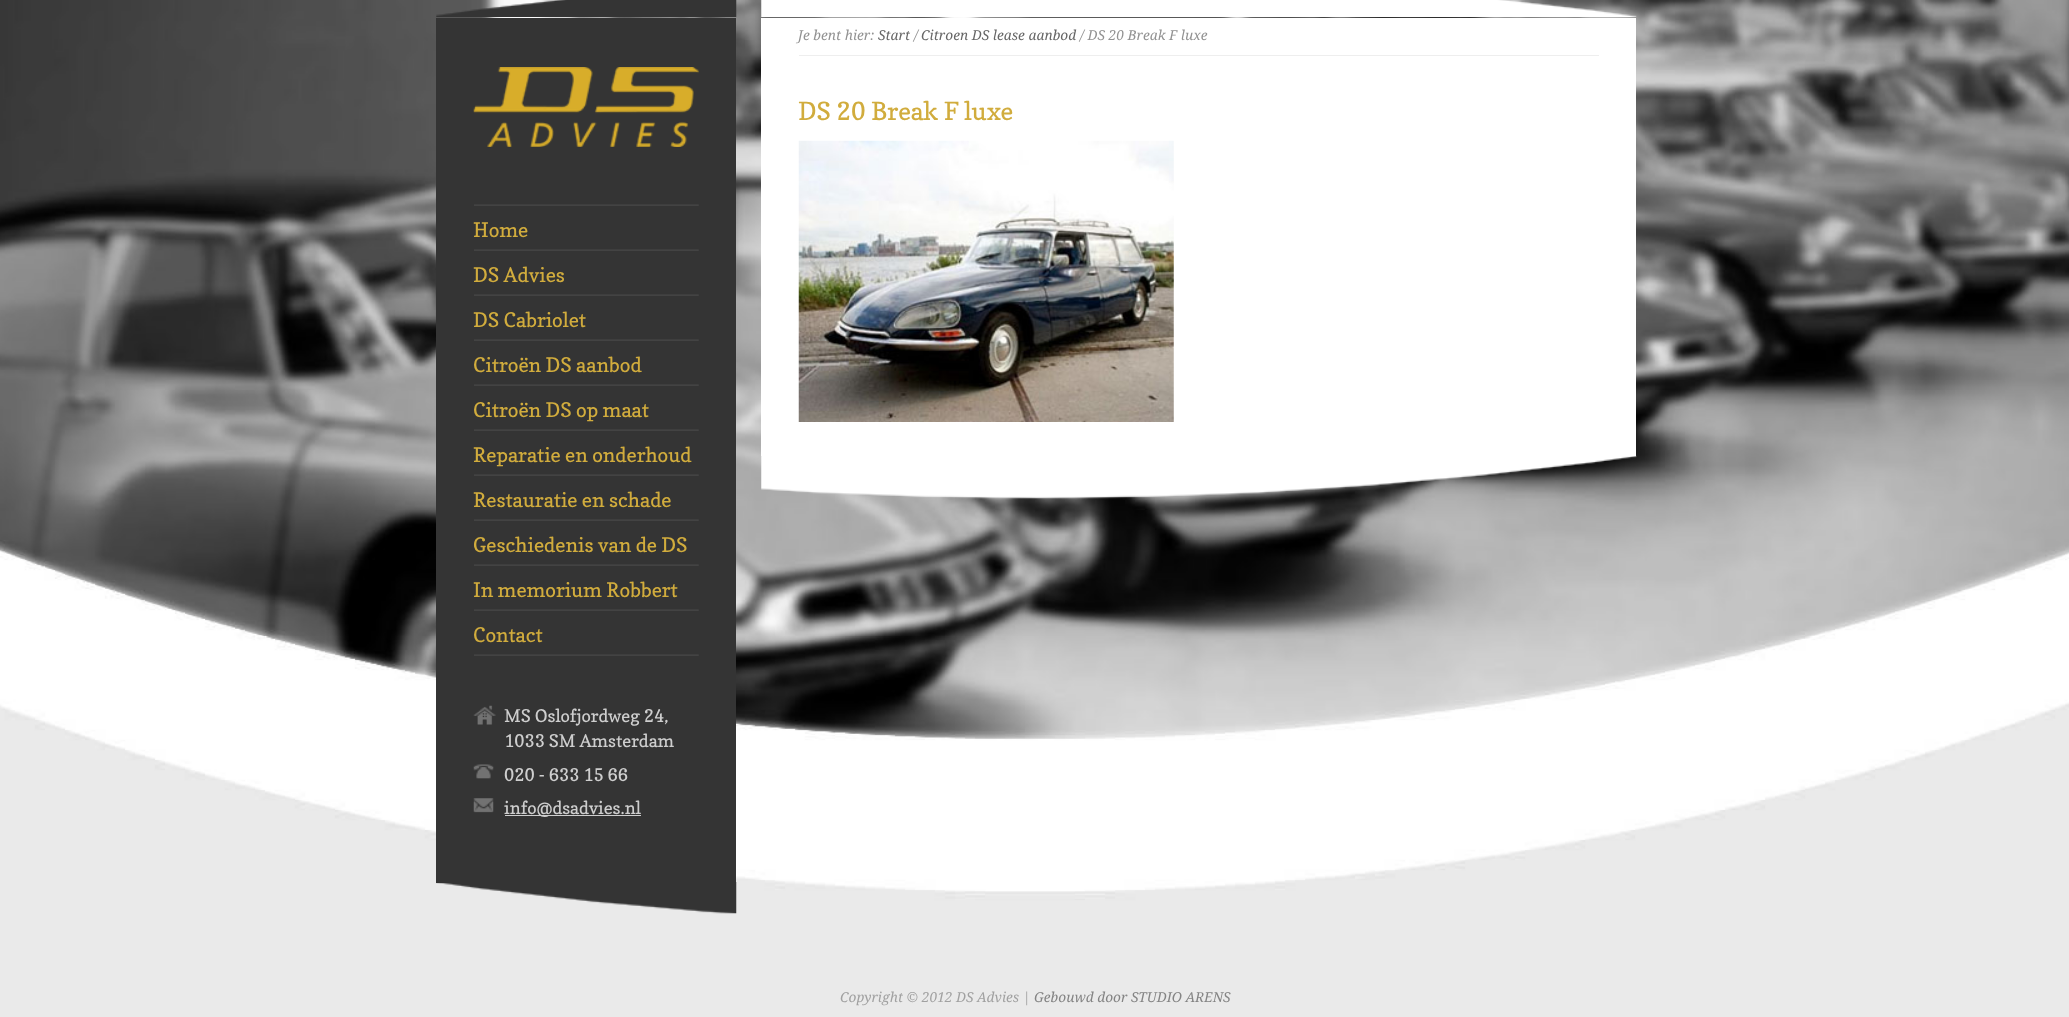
<svg xmlns="http://www.w3.org/2000/svg" xmlns:xlink="http://www.w3.org/1999/xlink" width="2069" height="1017" viewBox="0 0 2069 1017">
<style>
.cls-1{font:italic 13.75px Droid Serif;fill:#929292}
.cls-2{font:italic 13.75px Droid Serif;fill:#666666}
.cls-3{font:25px Copse;fill:#d1ac3d}
.cls-4{font:20px Copse;fill:#d1ac3d}
.cls-5{font:17.5px Copse;fill:#cecece}
.cls-6{font:italic 13.75px Droid Serif;fill:#a1a1a1}
.cls-7{font:italic 13.75px Droid Serif;fill:#848484}
</style>
<rect width="100%" height="100%" fill="#ffffff"/>
<image xlink:href="image0.png" x="0" y="0" width="2069" height="1017"/>
<image xlink:href="image1.png" x="761" y="0" width="876" height="17"/>
<rect fill="#ffffff" x="761" y="18" width="875" height="438"/>
<rect fill="#eeeeee" x="799" y="55" width="800" height="1"/>
<image xlink:href="image2.png" x="798" y="140" width="376" height="282"/>
<image xlink:href="image3.png" x="761" y="455" width="876" height="44"/>
<image xlink:href="image4.png" x="436" y="0" width="301" height="17"/>
<rect fill="#343434" x="436" y="18" width="300" height="865"/>
<image xlink:href="image5.png" x="473" y="67" width="226" height="80"/>
<image xlink:href="image6.png" x="474" y="204" width="225" height="2"/>
<image xlink:href="image6.png" x="474" y="249" width="225" height="2"/>
<image xlink:href="image6.png" x="474" y="294" width="225" height="2"/>
<image xlink:href="image6.png" x="474" y="339" width="225" height="2"/>
<image xlink:href="image6.png" x="474" y="384" width="225" height="2"/>
<image xlink:href="image6.png" x="474" y="429" width="225" height="2"/>
<image xlink:href="image6.png" x="474" y="474" width="225" height="2"/>
<image xlink:href="image6.png" x="474" y="519" width="225" height="2"/>
<image xlink:href="image6.png" x="474" y="564" width="225" height="2"/>
<image xlink:href="image6.png" x="474" y="609" width="225" height="2"/>
<image xlink:href="image6.png" x="474" y="654" width="225" height="2"/>
<image xlink:href="image7.png" x="473" y="705" width="23" height="20"/>
<image xlink:href="image8.png" x="473" y="764" width="21" height="15"/>
<image xlink:href="image9.png" x="473" y="798" width="21" height="15"/>
<rect fill="#cecece" x="505" y="815" width="136" height="1"/>
<image xlink:href="image10.png" x="436" y="882" width="301" height="32"/>
<text class="cls-1" x="798" y="40">Je bent hier:</text>
<text class="cls-2" x="878" y="40">Start</text>
<text class="cls-1" x="914" y="40">/</text>
<text class="cls-2" x="921" y="40">Citroen DS lease aanbod</text>
<text class="cls-1" x="1080" y="40">/ DS 20 Break F luxe</text>
<text class="cls-3" x="798" y="120">DS 20 Break F luxe</text>
<text class="cls-4" x="473" y="237">Home</text>
<text class="cls-4" x="473" y="282">DS Advies</text>
<text class="cls-4" x="473" y="327">DS Cabriolet</text>
<text class="cls-4" x="473" y="372">Citroën DS aanbod</text>
<text class="cls-4" x="473" y="417">Citroën DS op maat</text>
<text class="cls-4" x="473" y="462">Reparatie en onderhoud</text>
<text class="cls-4" x="473" y="507">Restauratie en schade</text>
<text class="cls-4" x="473" y="552">Geschiedenis van de DS</text>
<text class="cls-4" x="473" y="597">In memorium Robbert</text>
<text class="cls-4" x="473" y="642">Contact</text>
<text class="cls-5"><tspan x="504" y="722">MS Oslofjordweg 24,</tspan><tspan x="504" y="747">1033 SM Amsterdam</tspan><tspan x="504" y="781">020 - 633 15 66</tspan><tspan x="504" y="814">info@dsadvies.nl</tspan></text>
<text class="cls-6" x="840" y="1002">Copyright © 2012 DS Advies |</text>
<text class="cls-7" x="1034" y="1002">Gebouwd door STUDIO ARENS</text>
</svg>
